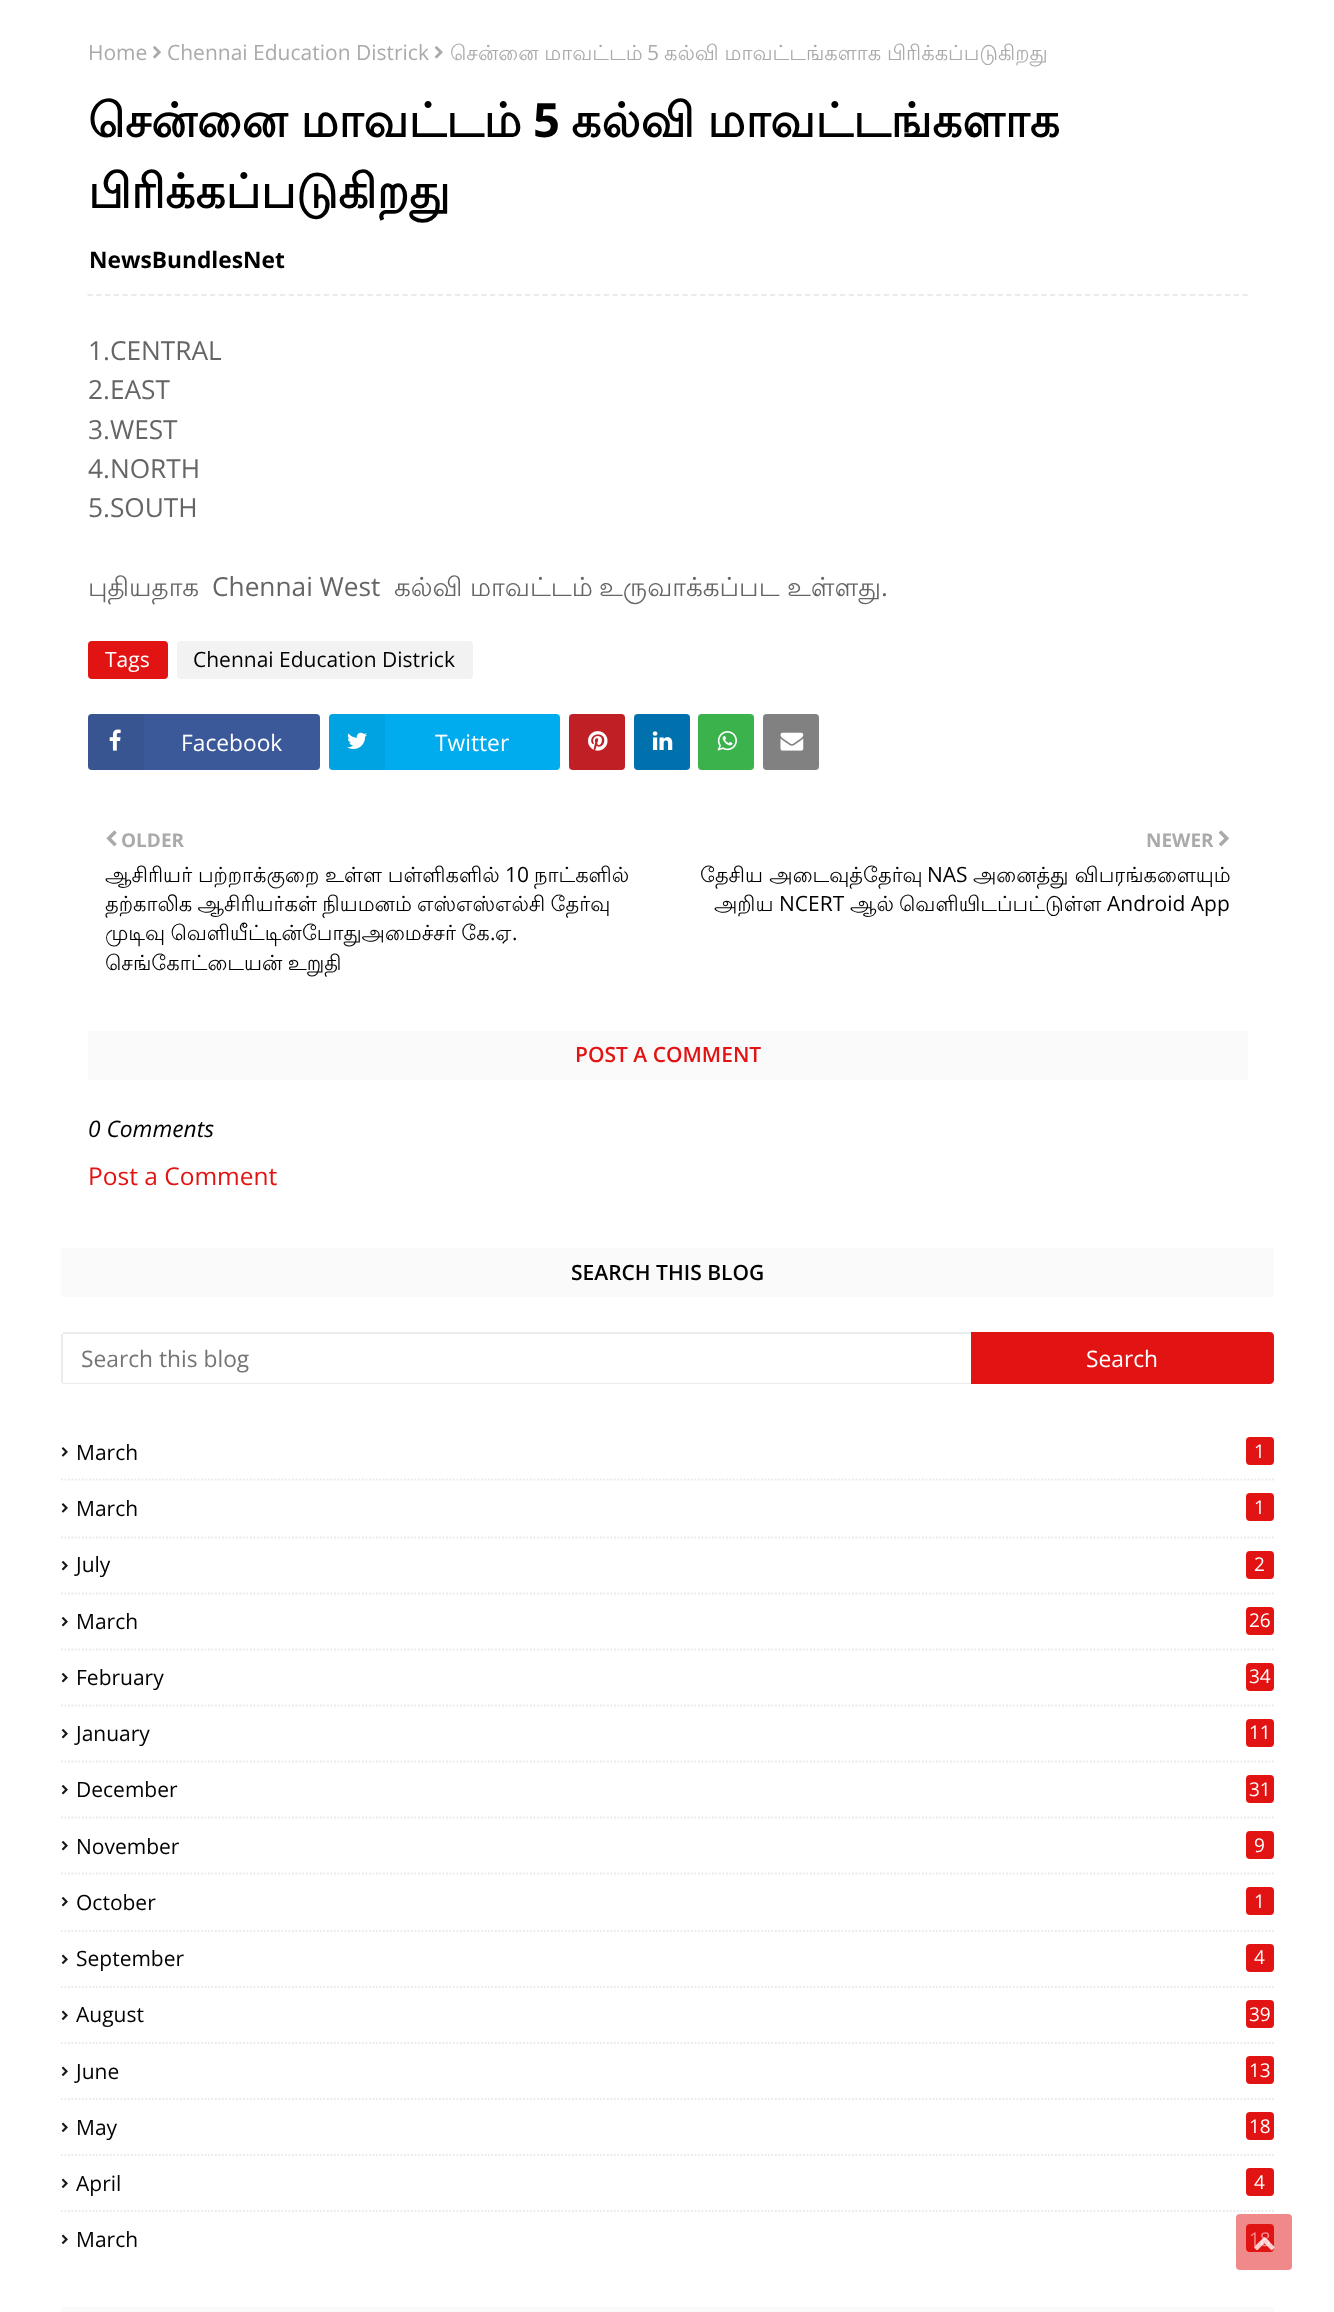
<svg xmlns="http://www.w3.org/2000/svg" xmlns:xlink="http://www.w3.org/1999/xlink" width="1334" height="2312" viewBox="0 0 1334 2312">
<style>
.cls-1{font:21px Open Sans;fill:#aaaaaa}
.cls-2{font:21px Lohit Tamil;fill:#aaaaaa}
.cls-3{font:bold 47.25px Lohit Tamil;fill:#000000}
.cls-4{font:bold 47.25px Open Sans;fill:#000000}
.cls-5{font:bold 22.75px Open Sans;fill:#000000}
.cls-6{font:26.25px Open Sans;fill:#656565}
.cls-7{font:26.25px Lohit Tamil;fill:#656565}
.cls-8{font:21px Open Sans;fill:#ffffff}
.cls-9{font:21px Open Sans;fill:#000000}
.cls-10{font:22.75px Open Sans;fill:#ffffff}
.cls-11{font:bold 19px Open Sans;fill:#aaaaaa}
.cls-12{font:21px Lohit Tamil;fill:#000000}
.cls-13{font:600 21px Open Sans;fill:#e21313}
.cls-14{font:italic 22.75px Open Sans;fill:#000000}
.cls-15{font:24.5px Open Sans;fill:#e21313}
.cls-16{font:600 21px Open Sans;fill:#000000}
.cls-17{font:22.75px Open Sans;fill:#757575}
.cls-18{font:19px Open Sans;fill:#ffffff}
</style>
<rect width="100%" height="100%" fill="#ffffff"/>
<rect fill="#f2f2f2" x="763" y="714" width="56" height="56"/>
<rect fill="#f2f2f2" x="698" y="714" width="56" height="56"/>
<rect fill="#f2f2f2" x="634" y="714" width="56" height="56"/>
<rect fill="#f2f2f2" x="569" y="714" width="56" height="56"/>
<image xlink:href="image0.png" x="153" y="46" width="8" height="13"/>
<image xlink:href="image1.png" x="434" y="46" width="9" height="13"/>
<path fill="none" stroke="#ebebeb" stroke-width="1.8" stroke-dasharray="5.25 3.5" d="M87.5 295H1248"/>
<rect fill="#e21313" x="88" y="641" width="80" height="38" rx="4"/>
<rect fill="#f2f2f2" x="177" y="641" width="296" height="38" rx="4"/>
<rect fill="#3b5999" x="88" y="714" width="232" height="56" rx="4"/>
<rect fill="#000000" fill-opacity="0.05" x="88" y="714" width="56" height="56"/>
<image xlink:href="image2.png" x="109" y="729" width="12" height="22"/>
<rect fill="#00acee" x="329" y="714" width="231" height="56" rx="4"/>
<rect fill="#000000" fill-opacity="0.05" x="329" y="714" width="56" height="56"/>
<image xlink:href="image3.png" x="347" y="732" width="20" height="17"/>
<rect fill="#c01f25" x="569" y="714" width="56" height="56" rx="4"/>
<image xlink:href="image4.png" x="588" y="731" width="20" height="20"/>
<rect fill="#0071ac" x="634" y="714" width="56" height="56" rx="4"/>
<image xlink:href="image5.png" x="652" y="731" width="21" height="19"/>
<rect fill="#3cb24c" x="698" y="714" width="56" height="56" rx="4"/>
<image xlink:href="image6.png" x="717" y="731" width="20" height="20"/>
<rect fill="#818181" x="763" y="714" width="56" height="56" rx="4"/>
<image xlink:href="image7.png" x="780" y="732" width="24" height="19"/>
<image xlink:href="image8.png" x="106" y="830" width="11" height="17"/>
<image xlink:href="image9.png" x="1219" y="830" width="10" height="17"/>
<rect fill="#fafafa" x="88" y="1031" width="1160" height="49"/>
<rect fill="#fafafa" x="61" y="1248" width="1213" height="49"/>
<rect fill="#ebebeb" x="63" y="1332" width="908" height="2"/>
<rect fill="#ebebeb" x="63" y="1383" width="908" height="1"/>
<rect fill="#ebebeb" x="61" y="1334" width="2" height="49"/>
<path fill="#e21313" d="M971 1332H1270C1272 1332 1274 1334 1274 1336V1380C1274 1382 1272 1384 1270 1384H971Z"/>
<path fill="none" stroke="#eaeaea" stroke-width="1.8" stroke-dasharray="1.75 1.75" d="M61 1479.5H1274"/>
<image xlink:href="image10.png" x="61" y="1447" width="7" height="10"/>
<rect fill="#e21313" x="1246" y="1437" width="28" height="28" rx="4"/>
<path fill="none" stroke="#eaeaea" stroke-width="1.8" stroke-dasharray="1.75 1.75" d="M61 1537.5H1274"/>
<image xlink:href="image10.png" x="61" y="1503" width="7" height="10"/>
<rect fill="#e21313" x="1246" y="1493" width="28" height="28" rx="4"/>
<path fill="none" stroke="#eaeaea" stroke-width="1.8" stroke-dasharray="1.75 1.75" d="M61 1593.5H1274"/>
<image xlink:href="image11.png" x="61" y="1561" width="7" height="10"/>
<rect fill="#e21313" x="1246" y="1551" width="28" height="28" rx="4"/>
<path fill="none" stroke="#eaeaea" stroke-width="1.8" stroke-dasharray="1.75 1.75" d="M61 1649.5H1274"/>
<image xlink:href="image11.png" x="61" y="1617" width="7" height="10"/>
<rect fill="#e21313" x="1246" y="1607" width="28" height="28" rx="4"/>
<path fill="none" stroke="#eaeaea" stroke-width="1.8" stroke-dasharray="1.75 1.75" d="M61 1705.5H1274"/>
<image xlink:href="image11.png" x="61" y="1673" width="7" height="10"/>
<rect fill="#e21313" x="1246" y="1663" width="28" height="28" rx="4"/>
<path fill="none" stroke="#eaeaea" stroke-width="1.8" stroke-dasharray="1.75 1.75" d="M61 1761.5H1274"/>
<image xlink:href="image11.png" x="61" y="1729" width="7" height="10"/>
<rect fill="#e21313" x="1246" y="1719" width="28" height="28" rx="4"/>
<path fill="none" stroke="#eaeaea" stroke-width="1.8" stroke-dasharray="1.75 1.75" d="M61 1817.5H1274"/>
<image xlink:href="image11.png" x="61" y="1785" width="7" height="10"/>
<rect fill="#e21313" x="1246" y="1775" width="28" height="28" rx="4"/>
<path fill="none" stroke="#eaeaea" stroke-width="1.8" stroke-dasharray="1.75 1.75" d="M61 1873.5H1274"/>
<image xlink:href="image11.png" x="61" y="1841" width="7" height="10"/>
<rect fill="#e21313" x="1246" y="1831" width="28" height="28" rx="4"/>
<path fill="none" stroke="#eaeaea" stroke-width="1.8" stroke-dasharray="1.75 1.75" d="M61 1931H1274"/>
<image xlink:href="image11.png" x="61" y="1897" width="7" height="10"/>
<rect fill="#e21313" x="1246" y="1887" width="28" height="28" rx="4"/>
<path fill="none" stroke="#eaeaea" stroke-width="1.8" stroke-dasharray="1.75 1.75" d="M61 1987H1274"/>
<image xlink:href="image12.png" x="61" y="1954" width="7" height="10"/>
<rect fill="#e21313" x="1246" y="1944" width="28" height="28" rx="4"/>
<path fill="none" stroke="#eaeaea" stroke-width="1.8" stroke-dasharray="1.75 1.75" d="M61 2043H1274"/>
<image xlink:href="image12.png" x="61" y="2010" width="7" height="10"/>
<rect fill="#e21313" x="1246" y="2000" width="28" height="28" rx="4"/>
<path fill="none" stroke="#eaeaea" stroke-width="1.8" stroke-dasharray="1.75 1.75" d="M61 2099H1274"/>
<image xlink:href="image13.png" x="61" y="2066" width="7" height="10"/>
<rect fill="#e21313" x="1246" y="2056" width="28" height="28" rx="4"/>
<path fill="none" stroke="#eaeaea" stroke-width="1.8" stroke-dasharray="1.75 1.75" d="M61 2155H1274"/>
<image xlink:href="image13.png" x="61" y="2122" width="7" height="10"/>
<rect fill="#e21313" x="1246" y="2112" width="28" height="28" rx="4"/>
<path fill="none" stroke="#eaeaea" stroke-width="1.8" stroke-dasharray="1.75 1.75" d="M61 2211H1274"/>
<image xlink:href="image13.png" x="61" y="2178" width="7" height="10"/>
<rect fill="#e21313" x="1246" y="2168" width="28" height="28" rx="4"/>
<image xlink:href="image13.png" x="61" y="2234" width="7" height="10"/>
<rect fill="#e21313" x="1246" y="2224" width="28" height="28" rx="4"/>
<rect fill="#fafafa" x="61" y="2307" width="1213" height="5"/>
<text class="cls-1" x="88" y="60">Home</text>
<text class="cls-1" x="167" y="60">Chennai Education Districk</text>
<text class="cls-2" x="450" y="60" word-spacing="-0.5">சென்னை மாவட்டம்</text>
<text class="cls-1" x="647" y="60">5</text>
<text class="cls-2" x="664" y="60" word-spacing="-0.5">கல்வி மாவட்டங்களாக பிரிக்கப்படுகிறது</text>
<text class="cls-3" x="88" y="137" word-spacing="-1">சென்னை மாவட்டம்</text>
<text class="cls-4" x="533" y="137">5</text>
<text class="cls-3" x="571" y="137" word-spacing="-1">கல்வி மாவட்டங்களாக</text>
<text class="cls-3" x="88" y="208">பிரிக்கப்படுகிறது</text>
<text class="cls-5" x="89" y="268">NewsBundlesNet</text>
<text class="cls-6"><tspan x="88" y="360">1.CENTRAL</tspan><tspan x="88" y="399">2.EAST</tspan><tspan x="88" y="439">3.WEST</tspan><tspan x="88" y="478">4.NORTH</tspan><tspan x="88" y="517">5.SOUTH</tspan></text>
<text class="cls-7" x="88" y="596">புதியதாக</text>
<text class="cls-6" x="212" y="596">Chennai West</text>
<text class="cls-7" x="394" y="596">கல்வி</text>
<text class="cls-7" x="470" y="596">மாவட்டம்</text>
<text class="cls-7" x="599" y="596">உருவாக்கப்பட</text>
<text class="cls-7" x="787" y="596">உள்ளது</text>
<text class="cls-6" x="881" y="596">.</text>
<text class="cls-8" x="105" y="667">Tags</text>
<text class="cls-9" x="193" y="667">Chennai Education Districk</text>
<text class="cls-10" x="181" y="751">Facebook</text>
<text class="cls-10" x="435" y="751">Twitter</text>
<text class="cls-11" x="121" y="847">OLDER</text>
<text class="cls-12" x="105" y="882" word-spacing="-0.5">ஆசிரியர் பற்றாக்குறை உள்ள பள்ளிகளில்</text>
<text class="cls-9" x="505" y="882">10</text>
<text class="cls-12" x="534" y="882">நாட்களில்</text>
<text class="cls-12"><tspan x="105" y="911" word-spacing="-1">தற்காலிக ஆசிரியர்கள் நியமனம் எஸ்எஸ்எல்சி தேர்வு</tspan><tspan x="105" y="940" word-spacing="-1">முடிவு வெளியீட்டின்போதுஅமைச்சர் கே</tspan></text>
<text class="cls-9" x="490" y="940">.</text>
<text class="cls-12" x="495" y="940">ஏ</text>
<text class="cls-9" x="512" y="940">.</text>
<text class="cls-12" x="105" y="970" word-spacing="-1">செங்கோட்டையன் உறுதி</text>
<text class="cls-11" x="1146" y="847">NEWER</text>
<text class="cls-12" x="700" y="882">தேசிய அடைவுத்தேர்வு</text>
<text class="cls-9" x="927" y="882">NAS</text>
<text class="cls-12" x="973" y="882">அனைத்து விபரங்களையும்</text>
<text class="cls-12" x="714" y="911">அறிய</text>
<text class="cls-9" x="779" y="911">NCERT</text>
<text class="cls-12" x="850" y="911">ஆல்</text>
<text class="cls-12" x="899" y="911">வெளியிடப்பட்டுள்ள</text>
<text class="cls-9" x="1107" y="911">Android App</text>
<text class="cls-13" x="575" y="1062">POST A COMMENT</text>
<text class="cls-14" x="88" y="1137">0 Comments</text>
<text class="cls-15" x="88" y="1185">Post a Comment</text>
<text class="cls-16" x="571" y="1280">SEARCH THIS BLOG</text>
<text class="cls-17" x="81" y="1367">Search this blog</text>
<text class="cls-10" x="1086" y="1367">Search</text>
<text class="cls-9" x="76" y="1460">March</text>
<text class="cls-18" x="1254" y="1458">1</text>
<text class="cls-9" x="76" y="1516">March</text>
<text class="cls-18" x="1254" y="1514">1</text>
<text class="cls-9" x="76" y="1572">July</text>
<text class="cls-18" x="1254" y="1571">2</text>
<text class="cls-9" x="76" y="1629">March</text>
<text class="cls-18" x="1249" y="1627">26</text>
<text class="cls-9" x="76" y="1685">February</text>
<text class="cls-18" x="1249" y="1683">34</text>
<text class="cls-9" x="76" y="1741">January</text>
<text class="cls-18" x="1249" y="1739">11</text>
<text class="cls-9" x="76" y="1797">December</text>
<text class="cls-18" x="1249" y="1796">31</text>
<text class="cls-9" x="76" y="1854">November</text>
<text class="cls-18" x="1254" y="1852">9</text>
<text class="cls-9" x="76" y="1910">October</text>
<text class="cls-18" x="1254" y="1908">1</text>
<text class="cls-9" x="76" y="1966">September</text>
<text class="cls-18" x="1254" y="1964">4</text>
<text class="cls-9" x="76" y="2022">August</text>
<text class="cls-18" x="1249" y="2021">39</text>
<text class="cls-9" x="76" y="2079">June</text>
<text class="cls-18" x="1249" y="2077">13</text>
<text class="cls-9" x="76" y="2135">May</text>
<text class="cls-18" x="1249" y="2133">18</text>
<text class="cls-9" x="76" y="2191">April</text>
<text class="cls-18" x="1254" y="2189">4</text>
<text class="cls-9" x="76" y="2247">March</text>
<text class="cls-18" x="1249" y="2246">18</text>
<rect fill="#e21313" fill-opacity="0.5" x="1236" y="2214" width="56" height="56" rx="4"/>
<image xlink:href="image14.png" x="1254" y="2237" width="21" height="14"/>
</svg>
